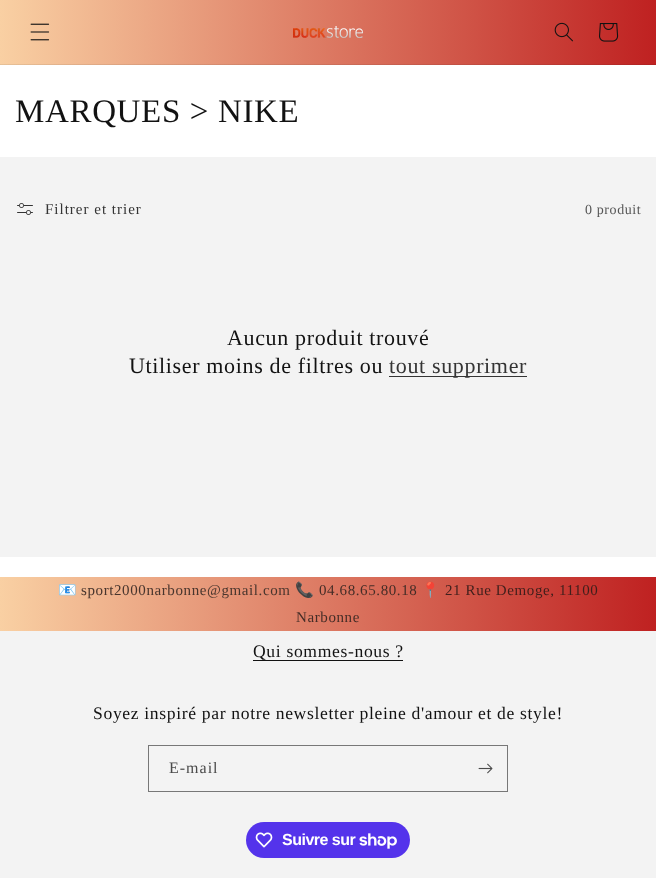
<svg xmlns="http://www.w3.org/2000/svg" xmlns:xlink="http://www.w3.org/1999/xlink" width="656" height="878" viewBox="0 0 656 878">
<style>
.cls-1{font:33px Liberation Serif;letter-spacing:0.65px;fill:#121212}
.cls-2{font:15px Liberation Serif;letter-spacing:1px;fill:#343434}
.cls-3{font:14px Liberation Serif;letter-spacing:0.6px;fill:#565656}
.cls-4{font:22px Liberation Serif;letter-spacing:0.65px;fill:#121212}
.cls-5{font:22px Liberation Serif;letter-spacing:0.65px;fill:#343434}
.cls-6{font:15px Noto Color Emoji;letter-spacing:0.6px;fill:#4a3d33}
.cls-7{font:15px Liberation Serif;letter-spacing:0.6px;fill:#48352d}
.cls-8{font:15px Noto Color Emoji;letter-spacing:0.6px;fill:#452d27}
.cls-9{font:15px Liberation Serif;letter-spacing:0.6px;fill:#452d27}
.cls-10{font:15px Noto Color Emoji;letter-spacing:0.6px;fill:#422521}
.cls-11{font:15px Liberation Serif;letter-spacing:0.6px;fill:#401f1c}
.cls-12{font:17.6px Liberation Serif;letter-spacing:0.65px;fill:#121212}
.cls-13{font:16px Liberation Serif;letter-spacing:1px;fill:#4a4a4a}
.cls-14{font:bold 16px Liberation Sans;letter-spacing:-0.5px;fill:#ffffff}
</style>
<defs>
<linearGradient id="g1" gradientUnits="userSpaceOnUse" x1="656" y1="439" x2="0" y2="439"><stop offset="0" stop-color="#bf2121"/><stop offset="1" stop-color="#f9d0a3"/></linearGradient>
<linearGradient id="g2" gradientUnits="userSpaceOnUse" x1="656" y1="439" x2="0" y2="439"><stop offset="0" stop-color="#b12020"/><stop offset="1" stop-color="#e7c197"/></linearGradient>
</defs>
<rect width="100%" height="100%" fill="#ffffff"/>
<rect fill="url(#g1)" x="0" y="0" width="656" height="64"/>
<rect fill="url(#g2)" x="0" y="64" width="656" height="1"/>
<image xlink:href="image0.png" x="30" y="23" width="20" height="18"/>
<image xlink:href="image1.png" x="293" y="26" width="70" height="12"/>
<image xlink:href="image2.png" x="554" y="22" width="19" height="20"/>
<image xlink:href="image3.png" x="599" y="23" width="20" height="19"/>
<rect fill="#f3f3f3" x="0" y="157" width="656" height="400"/>
<image xlink:href="image4.png" x="17" y="203" width="16" height="12"/>
<rect fill="#343434" x="389" y="376" width="138" height="1"/>
<rect fill="url(#g1)" x="0" y="577" width="656" height="54"/>
<rect fill="#f3f3f3" x="0" y="631" width="656" height="247"/>
<rect fill="#121212" x="253" y="660" width="150" height="1"/>
<rect fill="none" stroke="#777777" x="148.5" y="745.5" width="359" height="46"/>
<image xlink:href="image5.png" x="478" y="763" width="15" height="11"/>
<rect fill="#5433eb" x="246" y="822" width="164" height="36" rx="18"/>
<image xlink:href="image6.png" x="255" y="832" width="18" height="16"/>
<image xlink:href="image7.png" x="359" y="833" width="38" height="16"/>
<text class="cls-1" x="15" y="122">MARQUES &gt; NIKE</text>
<text class="cls-2" x="45" y="214">Filtrer et trier</text>
<text class="cls-3" x="585" y="214">0 produit</text>
<text class="cls-4" x="227" y="345">Aucun produit trouvé</text>
<text class="cls-4" x="129" y="373">Utiliser moins de filtres ou</text>
<text class="cls-5" x="389" y="373">tout supprimer</text>
<text class="cls-6" x="58" y="595">📧</text>
<text class="cls-7" x="81" y="595">sport2000narbonne@gmail.com</text>
<text class="cls-8" x="295" y="595">📞</text>
<text class="cls-9" x="319" y="595">04.68.65.80.18</text>
<text class="cls-10" x="421" y="595">📍</text>
<text class="cls-11" x="445" y="595">21 Rue Demoge, 11100</text>
<text class="cls-9" x="296" y="622">Narbonne</text>
<text class="cls-12" x="253" y="657">Qui sommes-nous ?</text>
<text class="cls-12" x="93" y="719">Soyez inspiré par notre newsletter pleine d'amour et de style!</text>
<text class="cls-13" x="169" y="773">E-mail</text>
<text class="cls-14" x="282" y="845">Suivre sur</text>
</svg>
